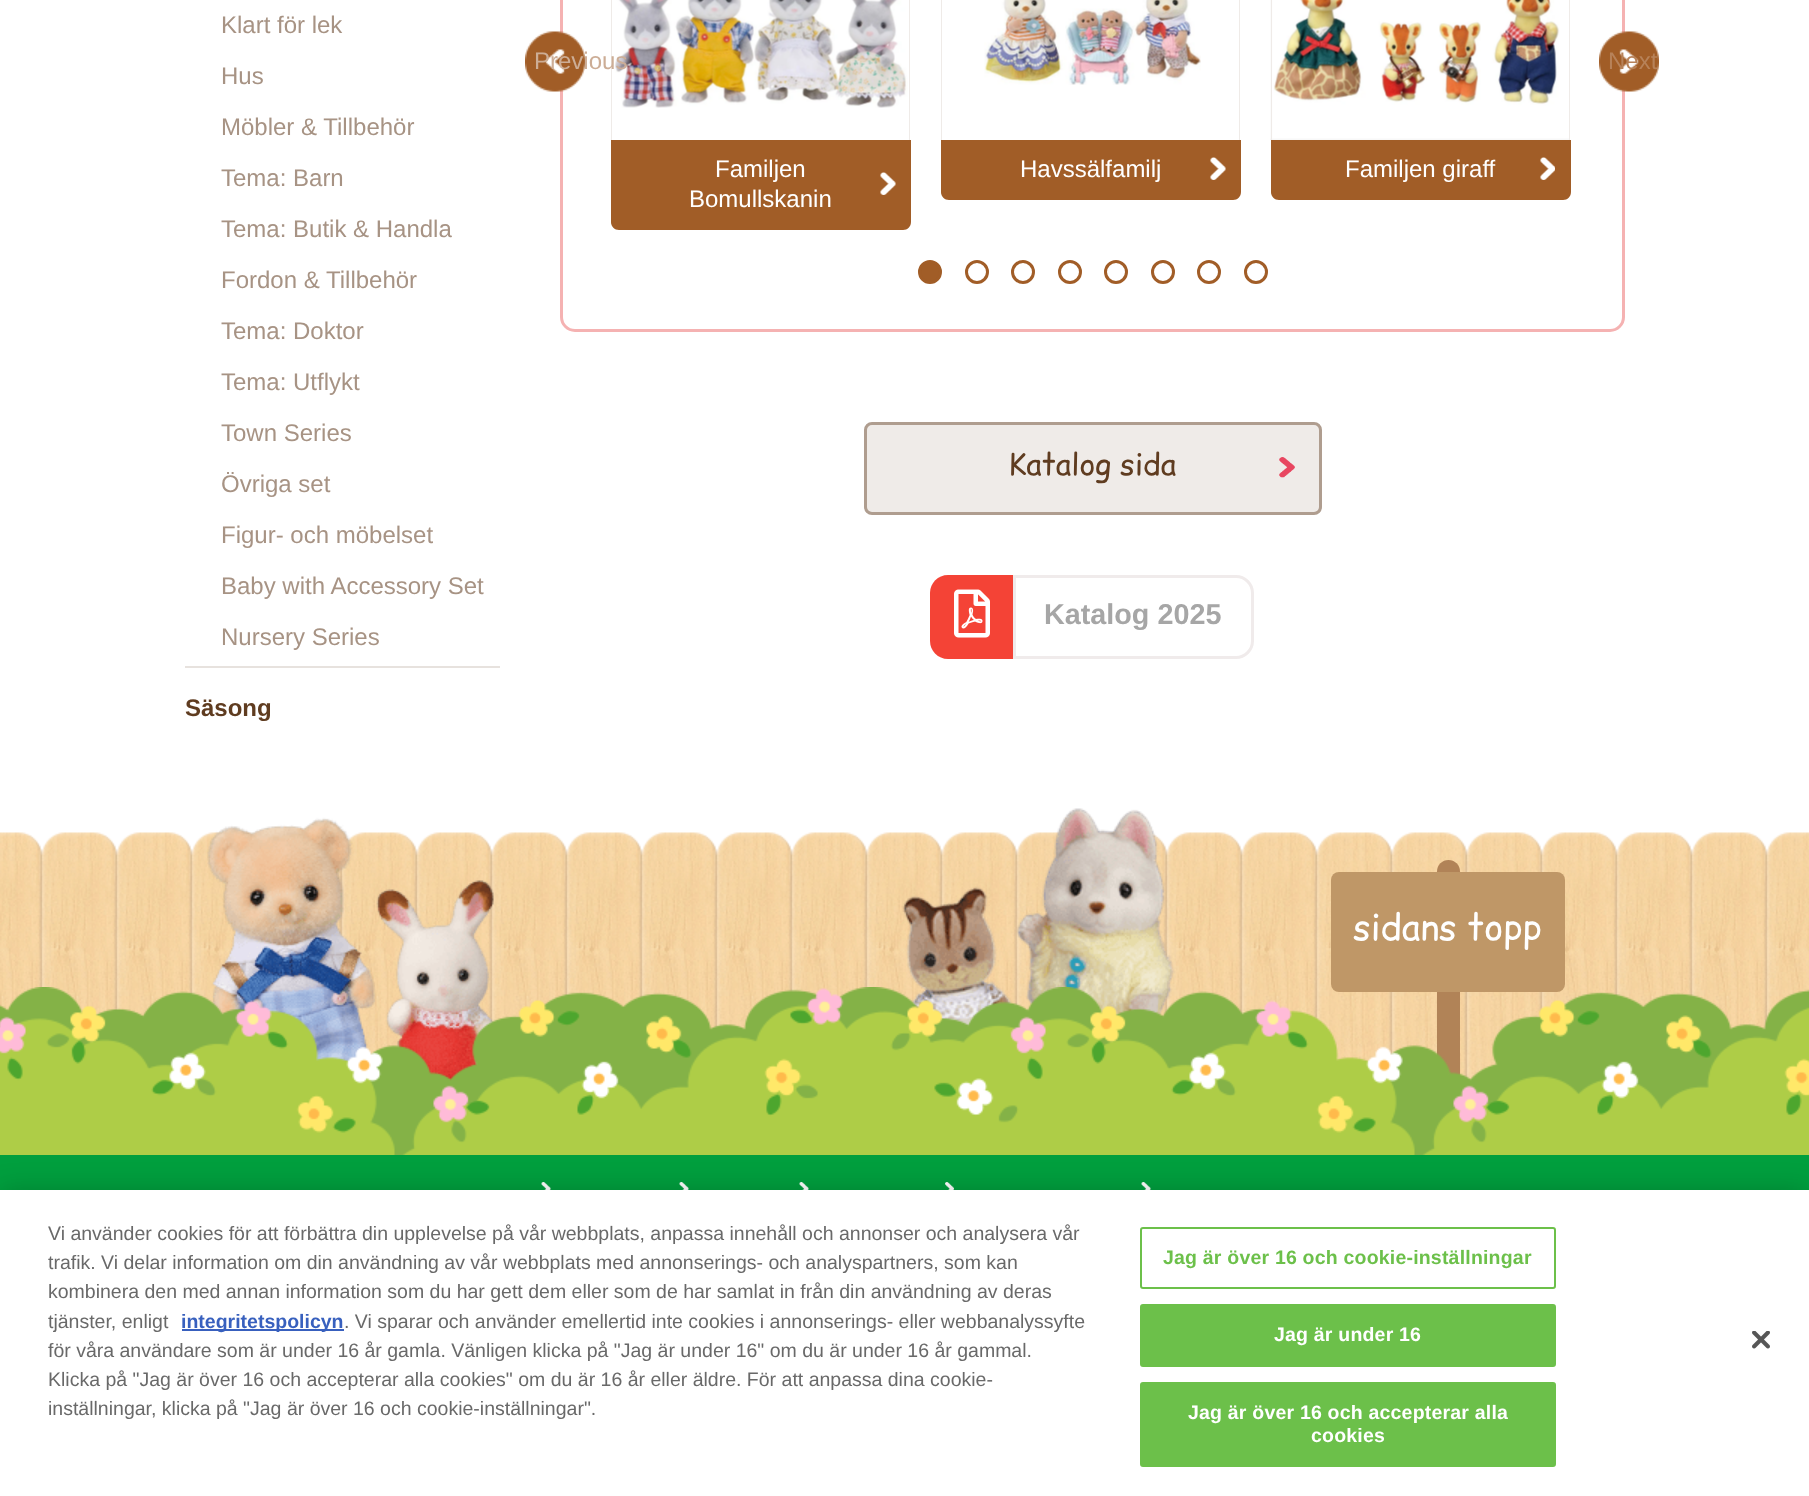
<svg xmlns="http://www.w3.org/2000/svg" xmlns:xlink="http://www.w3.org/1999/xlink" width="1809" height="1496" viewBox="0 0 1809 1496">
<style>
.cls-1{font:24px Liberation Sans;fill:#a79384}
.cls-2{font:bold 24px Liberation Sans;fill:#5f3c20}
.cls-3{font:24px Liberation Sans;fill:#ccad96}
.cls-4{font:24px Liberation Sans;fill:#b78259}
.cls-5{font:24px Liberation Sans;fill:#ffffff}
.cls-6{font:30px Comic Relief;fill:#5f3c20}
.cls-7{font:bold 28.75px Liberation Sans;fill:#a6a6a6}
.cls-8{font:36px Comic Relief;fill:#ffffff}
.cls-9{font:19.5px Liberation Sans;fill:#696969}
.cls-10{font:bold 19.5px Liberation Sans;fill:#3860be}
.cls-11{font:bold 19.5px Liberation Sans;letter-spacing:0.2px;fill:#6cc04a}
.cls-12{font:bold 19.5px Liberation Sans;letter-spacing:0.2px;fill:#ffffff}
</style>
<rect width="100%" height="100%" fill="#ffffff"/>
<rect fill="#e7e2de" x="185" y="666" width="315" height="2"/>
<rect fill="none" stroke="#f5b2b2" stroke-width="3" x="561.5" y="-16.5" width="1062" height="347" rx="13.5"/>
<image xlink:href="image0.png" x="525" y="31" width="60" height="61"/>
<image xlink:href="image1.png" x="1599" y="31" width="60" height="61"/>
<image xlink:href="image2.png" x="614" y="0" width="294" height="108"/>
<path fill="#efebe8" d="M618-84H903C906-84 909-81 909-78V140H910V-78C910-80 909-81 909-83C907-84 905-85 903-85H619C615-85 611-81 611-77V140H612V-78C612-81 615-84 618-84Z"/>
<path fill="#a15d27" d="M611 140H911V222C911 226.5 907.5 230 903 230H619C614.5 230 611 226.5 611 222Z"/>
<image xlink:href="image3.png" x="880" y="172" width="16" height="23"/>
<image xlink:href="image4.png" x="984" y="0" width="217" height="85"/>
<path fill="#efebe8" d="M948-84H1233C1236-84 1239-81 1239-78V140H1240V-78C1240-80 1239-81 1239-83C1237-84 1235-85 1233-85H949C945-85 941-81 941-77V140H942V-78C942-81 945-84 948-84Z"/>
<path fill="#a15d27" d="M941 140H1241V192C1241 196.5 1237.5 200 1233 200H949C944.5 200 941 196.5 941 192Z"/>
<image xlink:href="image5.png" x="1210" y="157" width="16" height="23"/>
<image xlink:href="image6.png" x="1270" y="0" width="299" height="140"/>
<path fill="#efebe8" d="M1278-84H1563C1566-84 1569-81 1569-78V140H1570V-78C1570-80 1569-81 1569-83C1567-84 1565-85 1563-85H1279C1275-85 1271-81 1271-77V140H1272V-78C1272-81 1275-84 1278-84Z"/>
<path fill="#a15d27" d="M1271 140H1571V192C1571 196.5 1567.5 200 1563 200H1279C1274.5 200 1271 196.5 1271 192Z"/>
<image xlink:href="image7.png" x="1540" y="157" width="15" height="23"/>
<circle fill="#a15d27" stroke="#a15d27" stroke-width="3" cx="930" cy="272" r="10.5"/>
<circle fill="none" stroke="#a15d27" stroke-width="3" cx="977" cy="272" r="10.5"/>
<circle fill="none" stroke="#a15d27" stroke-width="3" cx="1023" cy="272" r="10.5"/>
<circle fill="none" stroke="#a15d27" stroke-width="3" cx="1070" cy="272" r="10.5"/>
<circle fill="none" stroke="#a15d27" stroke-width="3" cx="1116" cy="272" r="10.5"/>
<circle fill="none" stroke="#a15d27" stroke-width="3" cx="1163" cy="272" r="10.5"/>
<circle fill="none" stroke="#a15d27" stroke-width="3" cx="1209" cy="272" r="10.5"/>
<circle fill="none" stroke="#a15d27" stroke-width="3" cx="1256" cy="272" r="10.5"/>
<rect fill="#efebe8" stroke="#af9d8f" stroke-width="3" x="865.5" y="423.5" width="455" height="90" rx="6.5"/>
<image xlink:href="image8.png" x="1279" y="457" width="16" height="21"/>
<path fill="#f44336" d="M948 575H1013V659H948C938 659 930 651 930 641V593C930 583 938 575 948 575Z"/>
<image xlink:href="image9.png" x="954" y="589" width="36" height="49"/>
<path fill="none" stroke="#f0ebeb" stroke-width="3" d="M1014.5 576.5H1236C1245 576.5 1252.5 584 1252.5 593V641C1252.5 650 1245 657.5 1236 657.5H1014.5Z"/>
<image xlink:href="image10.png" x="0" y="832" width="1809" height="249"/>
<image xlink:href="image11.png" x="207" y="808" width="968" height="273"/>
<rect fill="#b18357" x="1437" y="860" width="23" height="238" rx="11.5"/>
<rect fill="#bf9767" x="1331" y="872" width="234" height="120" rx="8"/>
<image xlink:href="image12.png" x="0" y="987" width="1809" height="168"/>
<rect fill="#009f3e" x="0" y="1155" width="1809" height="35"/>
<image xlink:href="image13.png" x="541" y="1182" width="10" height="8"/>
<image xlink:href="image13.png" x="679" y="1182" width="10" height="8"/>
<image xlink:href="image14.png" x="799" y="1182" width="10" height="8"/>
<image xlink:href="image15.png" x="945" y="1182" width="9" height="8"/>
<image xlink:href="image13.png" x="1141" y="1182" width="10" height="8"/>
<rect fill="#000000" fill-opacity="0.2" filter="blur(13.5px)" x="0" y="1190" width="1809" height="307"/>
<rect fill="#ffffff" x="0" y="1190" width="1809" height="306"/>
<rect fill="#3860be" x="182" y="1329" width="162" height="2"/>
<rect fill="none" stroke="#6cc04a" stroke-width="2" x="1141" y="1228" width="414" height="60" rx="2"/>
<rect fill="#6cc04a" stroke="#6cc04a" stroke-width="2" x="1141" y="1305" width="414" height="61" rx="2"/>
<rect fill="#6cc04a" stroke="#6cc04a" stroke-width="2" x="1141" y="1383" width="414" height="83" rx="2"/>
<image xlink:href="image16.png" x="1752" y="1331" width="18" height="18"/>
<text class="cls-1" x="221" y="33">Klart för lek</text>
<text class="cls-1" x="221" y="84">Hus</text>
<text class="cls-1" x="221" y="135">Möbler &amp; Tillbehör</text>
<text class="cls-1" x="221" y="186">Tema: Barn</text>
<text class="cls-1" x="221" y="237">Tema: Butik &amp; Handla</text>
<text class="cls-1" x="221" y="288">Fordon &amp; Tillbehör</text>
<text class="cls-1" x="221" y="339">Tema: Doktor</text>
<text class="cls-1" x="221" y="390">Tema: Utflykt</text>
<text class="cls-1" x="221" y="441">Town Series</text>
<text class="cls-1" x="221" y="492">Övriga set</text>
<text class="cls-1" x="221" y="543">Figur- och möbelset</text>
<text class="cls-1" x="221" y="594">Baby with Accessory Set</text>
<text class="cls-1" x="221" y="645">Nursery Series</text>
<text class="cls-2" x="185" y="716">Säsong</text>
<text class="cls-3" x="534" y="69">Previous</text>
<text class="cls-4" x="1608" y="69">Next</text>
<text class="cls-5" x="715" y="177">Familjen</text>
<text class="cls-5" x="689" y="207">Bomullskanin</text>
<text class="cls-5" x="1020" y="177">Havssälfamilj</text>
<text class="cls-5" x="1345" y="177">Familjen giraff</text>
<text class="cls-6" x="1008" y="475">Katalog sida</text>
<text class="cls-7" x="1044" y="624">Katalog 2025</text>
<text class="cls-8" x="1353" y="940">sidans topp</text>
<text class="cls-9"><tspan x="48" y="1240">Vi använder cookies för att förbättra din upplevelse på vår webbplats, anpassa innehåll och annonser och analysera vår</tspan><tspan x="48" y="1269">trafik. Vi delar information om din användning av vår webbplats med annonserings- och analyspartners, som kan</tspan><tspan x="48" y="1298">kombinera den med annan information som du har gett dem eller som de har samlat in från din användning av deras</tspan><tspan x="48" y="1328">tjänster, enligt</tspan></text>
<text class="cls-10" x="181" y="1328">integritetspolicyn</text>
<text class="cls-9" x="344" y="1328">. Vi sparar och använder emellertid inte cookies i annonserings- eller webbanalyssyfte</text>
<text class="cls-9"><tspan x="48" y="1357">för våra användare som är under 16 år gamla. Vänligen klicka på "Jag är under 16" om du är under 16 år gammal.</tspan><tspan x="48" y="1386">Klicka på "Jag är över 16 och accepterar alla cookies" om du är 16 år eller äldre. För att anpassa dina cookie-</tspan><tspan x="48" y="1415">inställningar, klicka på "Jag är över 16 och cookie-inställningar".</tspan></text>
<text class="cls-11" x="1163" y="1264">Jag är över 16 och cookie-inställningar</text>
<text class="cls-12" x="1274" y="1341">Jag är under 16</text>
<text class="cls-12" x="1188" y="1419">Jag är över 16 och accepterar alla</text>
<text class="cls-12" x="1311" y="1442">cookies</text>
</svg>
